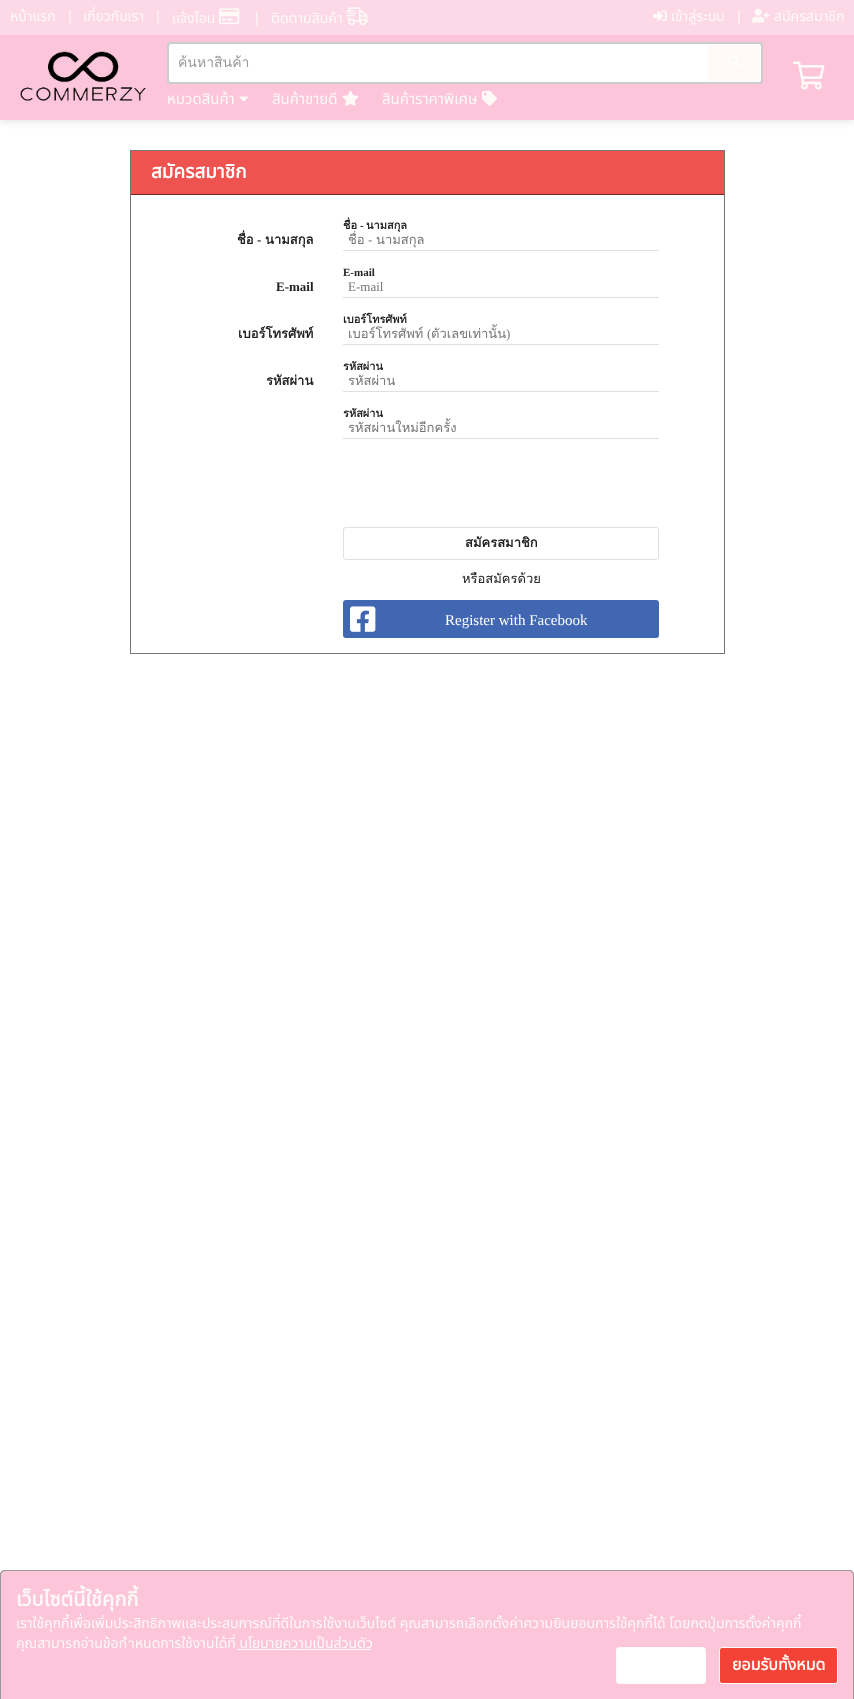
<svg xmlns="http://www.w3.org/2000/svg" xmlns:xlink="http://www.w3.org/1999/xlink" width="854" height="1699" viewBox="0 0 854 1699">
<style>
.cls-1{font:14px Noto Sans Thai;fill:#fffaf7}
.cls-2{font:14px Loma;fill:#999999}
.cls-3{font:15px Noto Sans Thai;fill:#fffaf7}
.cls-4{font:bold 19px Noto Sans Thai;fill:#ffffff}
.cls-5{font:bold 13px Loma;fill:#212121}
.cls-6{font:bold 13px Liberation Serif;fill:#212121}
.cls-7{font:bold 11px Loma;fill:#212121}
.cls-8{font:bold 11px Liberation Serif;fill:#212121}
.cls-9{font:13px Loma;fill:#757575}
.cls-10{font:13px Liberation Serif;fill:#757575}
.cls-11{font:13px Loma;fill:#212121}
.cls-12{font:15px Liberation Serif;fill:#ffffff}
.cls-13{font:bold 20px Noto Sans Thai;fill:#fffaf7}
.cls-14{font:bold 16px Noto Sans Thai;fill:#fffaf7}
</style>
<defs>
<clipPath id="clip1"><rect x="178" y="51" width="543" height="22"/></clipPath>
<clipPath id="clip2"><rect x="348" y="229" width="311" height="21"/></clipPath>
</defs>
<rect width="100%" height="100%" fill="#ffffff"/>
<rect fill="#000000" fill-opacity="0.15" filter="blur(5px)" x="0" y="0" width="854" height="120"/>
<rect fill="#fcc5da" x="0" y="35" width="854" height="85"/>
<rect fill="#fdd9e7" x="0" y="0" width="854" height="35"/>
<image xlink:href="image0.png" x="219" y="8" width="21" height="17"/>
<image xlink:href="image1.png" x="346" y="7" width="23" height="19"/>
<image xlink:href="image2.png" x="653" y="10" width="14" height="11"/>
<image xlink:href="image3.png" x="752" y="8" width="18" height="15"/>
<image xlink:href="image4.png" x="20" y="51" width="126" height="50"/>
<rect fill="#ffffff" stroke="#cccccc" stroke-width="2" x="168" y="43" width="594" height="40" rx="3"/>
<path fill="#fffaf7" d="M708 45H756C758 45 760 47 760 49V77C760 79 758 81 756 81H708Z"/>
<image xlink:href="image5.png" x="728" y="56" width="12" height="11"/>
<image xlink:href="image6.png" x="239" y="96" width="9" height="6"/>
<image xlink:href="image7.png" x="342" y="91" width="17" height="15"/>
<image xlink:href="image8.png" x="482" y="90" width="15" height="16"/>
<image xlink:href="image9.png" x="793" y="61" width="32" height="29"/>
<rect fill="none" stroke="#757575" x="130.5" y="150.5" width="594" height="503"/>
<rect fill="#ef5350" x="131" y="151" width="593" height="43"/>
<rect fill="#6e2625" x="131" y="194" width="593" height="1"/>
<rect fill="#e0e0e0" x="343" y="250" width="316" height="1"/>
<rect fill="#e0e0e0" x="343" y="297" width="316" height="1"/>
<rect fill="#e0e0e0" x="343" y="344" width="316" height="1"/>
<rect fill="#e0e0e0" x="343" y="391" width="316" height="1"/>
<rect fill="#e0e0e0" x="343" y="438" width="316" height="1"/>
<rect fill="none" stroke="#e0e0e0" x="343.5" y="527.5" width="315" height="32" rx="2.5"/>
<rect fill="#4267b2" x="343" y="600" width="316" height="38" rx="3"/>
<image xlink:href="image10.png" x="350" y="606" width="26" height="26"/>
<path fill="#fcc5da" d="M5 1570H849C852 1570 854 1572 854 1575V1699H0V1575C0 1572 2 1570 5 1570Z"/>
<path fill="#999999" fill-rule="evenodd" d="M5 1570H849C852 1570 854 1572 854 1575V1699H0V1575C0 1572 2 1570 5 1570ZM5 1571H849C851 1571 853 1573 853 1575V1699H1V1575C1 1573 3 1571 5 1571Z"/>
<rect fill="#fffaf7" x="237" y="1649" width="134" height="1"/>
<rect fill="#ffffff" stroke="#fffaf7" x="616.5" y="1647.5" width="89" height="36" rx="2.5"/>
<rect fill="#f44336" stroke="#fffaf7" x="719.5" y="1647.5" width="118" height="36" rx="2.5"/>
<text class="cls-1" x="10" y="21">หน้าแรก</text>
<text class="cls-1" x="66" y="21">|</text>
<text class="cls-1" x="83" y="21">เกี่ยวกับเรา</text>
<text class="cls-1" x="154" y="21">|</text>
<text class="cls-1" x="172" y="23">แจ้งโอน</text>
<text class="cls-1" x="253" y="23">|</text>
<text class="cls-1" x="271" y="23">ติดตามสินค้า</text>
<text class="cls-1" x="671" y="21">เข้าสู่ระบบ</text>
<text class="cls-1" x="735" y="21">|</text>
<text class="cls-1" x="774" y="21">สมัครสมาชิก</text>
<g clip-path="url(#clip1)">
<text class="cls-2" x="178" y="67">ค้นหาสินค้า</text>
</g>
<text class="cls-3" x="167" y="104">หมวดสินค้า</text>
<text class="cls-3" x="272" y="104">สินค้าขายดี</text>
<text class="cls-3" x="382" y="104">สินค้าราคาพิเศษ</text>
<text class="cls-4" x="151" y="178">สมัครสมาชิก</text>
<text class="cls-5" x="237" y="244">ชื่อ</text>
<text class="cls-6" x="257" y="244">-</text>
<text class="cls-5" x="265" y="244">นามสกุล</text>
<text class="cls-6" x="276" y="291">E-mail</text>
<text class="cls-5" x="238" y="338">เบอร์โทรศัพท์</text>
<text class="cls-5" x="266" y="385">รหัสผ่าน</text>
<text class="cls-7" x="343" y="229">ชื่อ</text>
<text class="cls-8" x="360" y="229">-</text>
<text class="cls-7" x="366" y="229">นามสกุล</text>
<g clip-path="url(#clip2)">
<text class="cls-9" x="348" y="244">ชื่อ</text>
</g>
<text class="cls-10" x="368" y="244">-</text>
<text class="cls-9" x="376" y="244">นามสกุล</text>
<text class="cls-8" x="343" y="276">E-mail</text>
<text class="cls-10" x="348" y="291">E-mail</text>
<text class="cls-7" x="343" y="323">เบอร์โทรศัพท์</text>
<text class="cls-9" x="348" y="338">เบอร์โทรศัพท์</text>
<text class="cls-10" x="427" y="338">(</text>
<text class="cls-9" x="431" y="338">ตัวเลขเท่านั้น</text>
<text class="cls-10" x="506" y="338">)</text>
<text class="cls-7" x="343" y="370">รหัสผ่าน</text>
<text class="cls-9" x="348" y="385">รหัสผ่าน</text>
<text class="cls-7" x="343" y="417">รหัสผ่าน</text>
<text class="cls-9" x="348" y="432">รหัสผ่านใหม่อีกครั้ง</text>
<text class="cls-5" x="465" y="547">สมัครสมาชิก</text>
<text class="cls-11" x="462" y="583">หรือสมัครด้วย</text>
<text class="cls-12" x="445" y="625">Register with Facebook</text>
<text class="cls-13" x="16" y="1606">เว็บไซต์นี้ใช้คุกกี้</text>
<text class="cls-1"><tspan x="16" y="1628">เราใช้คุกกี้เพื่อเพิ่มประสิทธิภาพและประสบการณ์ที่ดีในการใช้งานเว็บไซต์ คุณสามารถเลือกตั้งค่าความยินยอมการใช้คุกกี้ได้ โดยกดปุ่มการตั้งค่าคุกกี้</tspan><tspan x="16" y="1648">คุณสามารถอ่านข้อกำหนดการใช้งานได้ที่ นโยบายความเป็นส่วนตัว</tspan></text>
<text class="cls-14" x="732" y="1670">ยอมรับทั้งหมด</text>
</svg>
